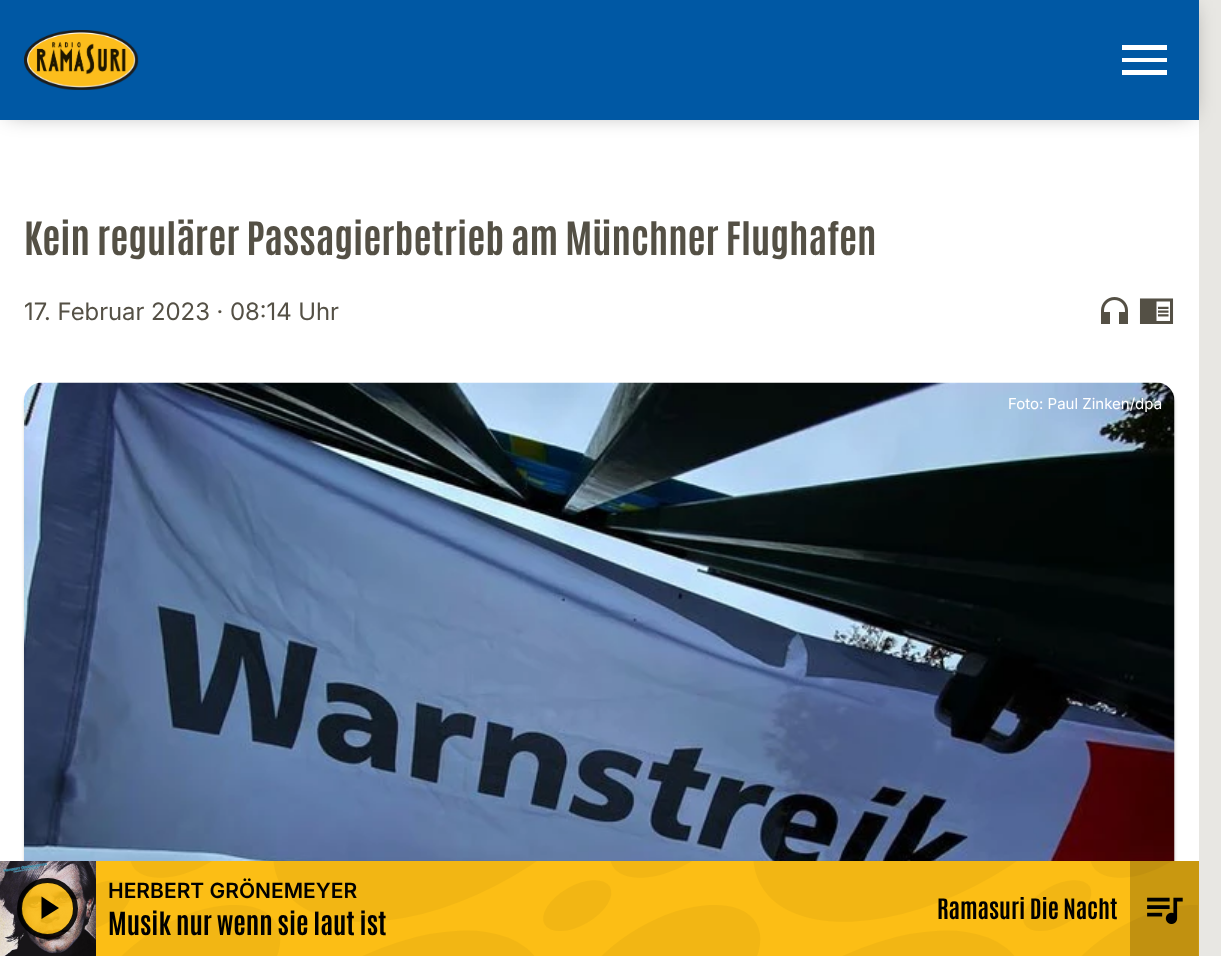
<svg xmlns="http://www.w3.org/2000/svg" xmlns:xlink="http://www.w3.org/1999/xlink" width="1221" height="956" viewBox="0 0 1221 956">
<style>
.cls-1{font:bold 39px Antonio;fill:#545045}
.cls-2{font:24px Inter;fill:#545045}
.cls-3{font:15px 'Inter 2';fill:#ffffff}
.cls-4{font:600 21px Inter;fill:#000000}
.cls-5{font:bold 27px Antonio;fill:#000000}
.cls-6{font:bold 24px Antonio;fill:#000000}
</style>
<rect width="100%" height="100%" fill="#e8e7e3"/>
<rect fill="#ffffff" x="0" y="120" width="1199" height="741"/>
<rect fill="#000000" fill-opacity="0.4" filter="blur(11px)" x="8" y="8" width="1183" height="105"/>
<rect fill="#0058a4" x="0" y="0" width="1199" height="120"/>
<image xlink:href="image0.png" x="24" y="30" width="115" height="60"/>
<path fill="#ffffff" d="M1122 75H1167V70H1122ZM1122 62H1167V58H1122ZM1122 45V50H1167V45Z"/>
<image xlink:href="image1.png" x="1101" y="297" width="27" height="27"/>
<image xlink:href="image2.png" x="1139" y="298" width="35" height="26"/>
<rect fill="#3d3829" fill-opacity="0.2" filter="blur(1.5px)" x="24" y="386" width="1151" height="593" rx="18"/>
<image xlink:href="image3.png" x="24" y="382" width="1151" height="479"/>
<rect fill="#fcbe15" x="96" y="861" width="1103" height="95"/>
<image xlink:href="image4.png" x="96" y="861" width="1102" height="95"/>
<image xlink:href="image5.png" x="0" y="861" width="96" height="95"/>
<rect fill="#000000" fill-opacity="0.2" x="1130" y="861" width="69" height="95"/>
<image xlink:href="image6.png" x="1147" y="897" width="36" height="27"/>
<circle fill="#fcbe15" fill-opacity="0.9" cx="47.5" cy="908.5" r="26.5"/>
<circle fill="none" stroke="#000000" stroke-opacity="0.9" stroke-width="5" cx="47.5" cy="908.5" r="28"/>
<path fill="#000000" d="M41.5 896.5V919L59 908Z"/>
<text class="cls-1" x="24" y="255">Kein regulärer Passagierbetrieb am Münchner Flughafen</text>
<text class="cls-2" x="24" y="320">17. Februar 2023 · 08:14 Uhr</text>
<text class="cls-3" x="1008" y="409">Foto: Paul Zinken/dpa</text>
<text class="cls-4" x="108" y="898">HERBERT GRÖNEMEYER</text>
<text class="cls-5" x="108" y="935">Musik nur wenn sie laut ist</text>
<text class="cls-6" x="937" y="919">Ramasuri Die Nacht</text>
</svg>
